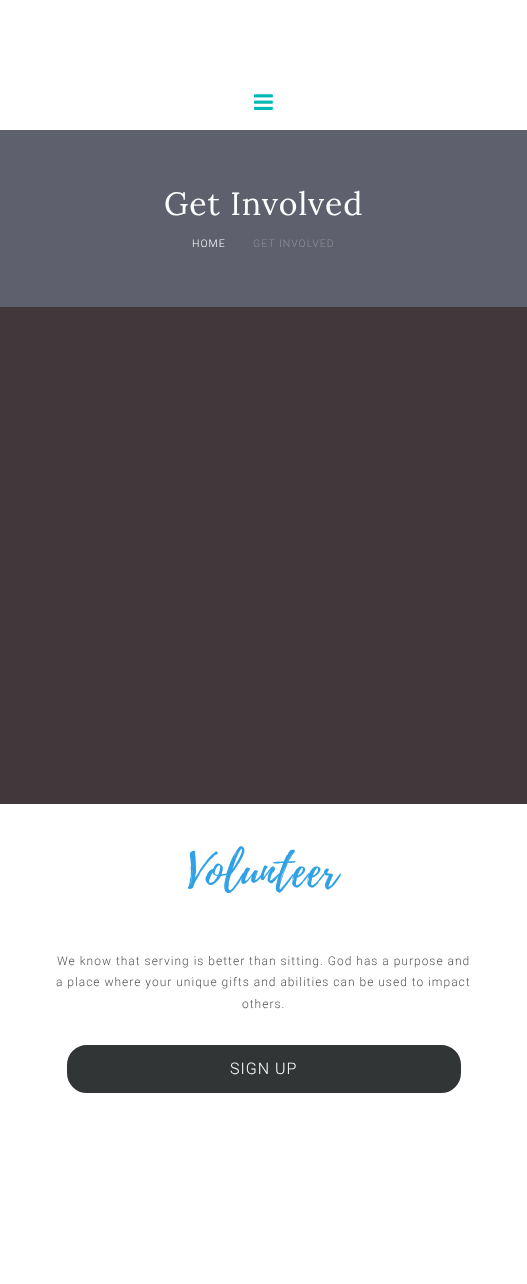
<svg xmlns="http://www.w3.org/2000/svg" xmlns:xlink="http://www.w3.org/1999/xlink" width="527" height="1284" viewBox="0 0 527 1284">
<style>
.cls-1{font:32px Lora;letter-spacing:1px;fill:#ffffff}
.cls-2{font:300 10.5px Roboto;letter-spacing:1px;fill:#ffffff}
.cls-3{font:300 10.5px Roboto;letter-spacing:1px;fill:#8e9099}
.cls-4{font:45.5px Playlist;letter-spacing:1px;fill:#31a1e6}
.cls-5{font:300 12px Roboto;letter-spacing:1px;fill:#555555}
.cls-6{font:300 16px Roboto;letter-spacing:1px;fill:#ffffff}
</style>
<rect width="100%" height="100%" fill="#ffffff"/>
<image xlink:href="image0.png" x="254" y="94" width="19" height="16"/>
<rect fill="#5e606d" x="0" y="130" width="527" height="177"/>
<rect fill="#42373b" x="0" y="307" width="527" height="497"/>
<rect fill="#323536" stroke="#ffffff" stroke-width="3" x="65.5" y="1043.5" width="397" height="51" rx="21.5"/>
<text class="cls-1" x="164" y="215">Get Involved</text>
<text class="cls-2" x="192" y="247">HOME</text>
<text class="cls-3" x="253" y="247">GET INVOLVED</text>
<text class="cls-4" x="188" y="885">Volunteer</text>
<text class="cls-5" x="57" y="965">We know that serving is better than sitting. God has a purpose and</text>
<text class="cls-5" x="56" y="986">a place where your unique gifts and abilities can be used to impact</text>
<text class="cls-5" x="242" y="1008">others.</text>
<text class="cls-6" x="230" y="1074">SIGN UP</text>
</svg>
